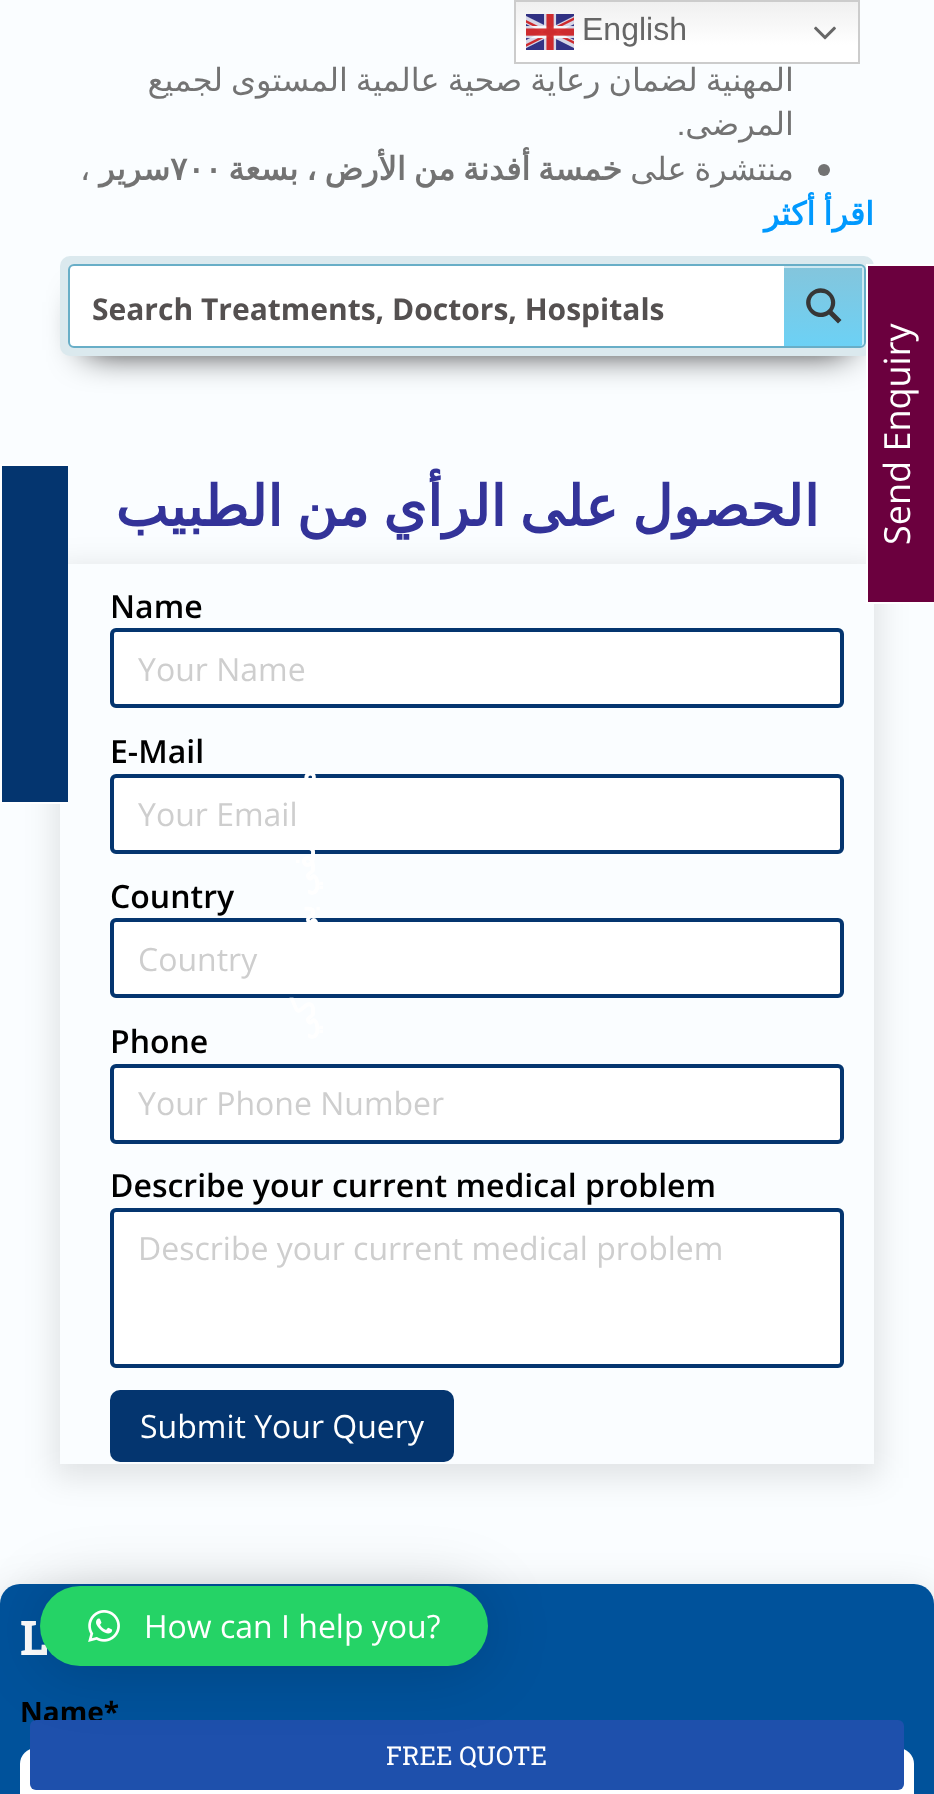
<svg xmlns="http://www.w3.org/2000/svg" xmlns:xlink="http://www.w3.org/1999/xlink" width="934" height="1794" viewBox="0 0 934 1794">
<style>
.cls-1{font:32px Liberation Sans;fill:#666666}
.cls-2{font:32px DejaVu Sans;direction:rtl;fill:#737373}
.cls-3{font:32px Roboto Slab;direction:rtl;fill:#737373}
.cls-4{font:32px DejaVu Sans;fill:#737373}
.cls-5{font:bold 32px DejaVu Sans;direction:rtl;fill:#737373}
.cls-6{font:bold 32px DejaVu Sans;fill:#737373}
.cls-7{font:bold 32px DejaVu Sans;direction:rtl;fill:#0099fe}
.cls-8{font:bold 30px Open Sans;fill:#545050}
.cls-9{font:bold 32px DejaVu Sans;direction:rtl;fill:#ffffff}
.cls-10{font:bold 56px DejaVu Sans;direction:rtl;fill:#333399}
.cls-11{font:600 32px Open Sans;fill:#000000}
.cls-12{font:32px Open Sans;fill:#cecece}
.cls-13{font:32px Open Sans;fill:#ffffff}
.cls-14{font:36px Open Sans;fill:#ffffff}
.cls-15{font:bold 48px Roboto Slab;fill:#ffffff}
.cls-16{font:bold 28px Open Sans;fill:#000000}
.cls-17{font:26px Roboto Slab;fill:#ffffff}
</style>
<defs>
<linearGradient id="g1" gradientUnits="userSpaceOnUse" x1="687" y1="0" x2="687" y2="64"><stop offset="0" stop-color="#efefef"/><stop offset="0.7" stop-color="#ffffff"/></linearGradient>
<linearGradient id="g2" gradientUnits="userSpaceOnUse" x1="824" y1="266" x2="824" y2="346"><stop offset="0" stop-color="#84c5dc"/><stop offset="1" stop-color="#6cd1f5"/></linearGradient>
<clipPath id="clip1"><rect x="784" y="266" width="80" height="80"/></clipPath>
<clipPath id="clip2"><path d="M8 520H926V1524H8ZM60 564H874V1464H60Z" clip-rule="evenodd"/></clipPath>
</defs>
<rect width="100%" height="100%" fill="#fafdff"/>
<rect fill="url(#g1)" x="516" y="2" width="342" height="60"/>
<rect fill="none" stroke="#cccccc" stroke-width="2" x="515" y="1" width="344" height="62"/>
<image xlink:href="image0.png" x="526" y="14" width="48" height="36"/>
<image xlink:href="image1.png" x="814" y="26" width="22" height="14"/>
<circle fill="#737373" cx="824" cy="170" r="6"/>
<rect fill="#000000" filter="blur(18px)" x="86" y="302" width="762" height="48"/>
<rect fill="#dbe9ee" x="60" y="256" width="814" height="100" rx="10"/>
<rect fill="#ffffff" stroke="#68aec7" stroke-width="2" x="69" y="265" width="796" height="82" rx="5"/>
<path fill="url(#g2)" d="M784 266H860C862 266 864 268 864 270V342C864 344 862 346 860 346H784Z"/>
<g clip-path="url(#clip1)">
<path fill="#ffffff" fill-opacity="0.61" d="M782 268V346H586V266H860C862 266 864 268 864 270V342C864 343 863 345 862 345V268Z"/>
</g>
<path fill="#363636" d="M841.5 320L832.5 311C842.5 297 823.5 280 810.5 292.5C798 305 815 324 829 314.5L838 323.5ZM810.5 302.5C810.5 289.5 831 289.5 831 302.5C831 316 810.5 316 810.5 302.5Z"/>
<g clip-path="url(#clip2)">
<rect fill="#000000" fill-opacity="0.1" filter="blur(15px)" x="54" y="566" width="826" height="912"/>
</g>
<rect fill="#04356f" x="2" y="466" width="66" height="336"/>
<rect fill="#ffffff" x="0" y="464" width="2" height="340"/>
<rect fill="#ffffff" x="0" y="464" width="68" height="2"/>
<rect fill="#ffffff" x="0" y="802" width="68" height="2"/>
<rect fill="#ffffff" stroke="#04356f" stroke-width="4" x="112" y="630" width="730" height="76" rx="4"/>
<rect fill="#ffffff" stroke="#04356f" stroke-width="4" x="112" y="776" width="730" height="76" rx="4"/>
<rect fill="#ffffff" stroke="#04356f" stroke-width="4" x="112" y="920" width="730" height="76" rx="4"/>
<rect fill="#ffffff" stroke="#04356f" stroke-width="4" x="112" y="1066" width="730" height="76" rx="4"/>
<rect fill="#ffffff" stroke="#04356f" stroke-width="4" x="112" y="1210" width="730" height="156" rx="4"/>
<rect fill="#04356f" x="110" y="1390" width="344" height="72" rx="10"/>
<rect fill="#6b003e" x="868" y="266" width="66" height="336"/>
<rect fill="#ffffff" x="866" y="264" width="2" height="340"/>
<rect fill="#ffffff" x="866" y="264" width="68" height="2"/>
<rect fill="#ffffff" x="866" y="602" width="68" height="2"/>
<rect fill="#000000" fill-opacity="0.15" filter="blur(20px)" x="0" y="1594" width="934" height="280" rx="20"/>
<rect fill="#00529b" x="0" y="1584" width="934" height="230" rx="20"/>
<rect fill="#ffffff" x="20" y="1748" width="894" height="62" rx="16"/>
<text class="cls-1" x="582" y="40">English</text>
<text class="cls-2" x="794" y="91" word-spacing="-2.25">المهنية لضمان رعاية صحية عالمية المستوى لجميع</text>
<text class="cls-3" x="685" y="135">.</text>
<text class="cls-2" x="794" y="135">المرضى</text>
<text class="cls-4" x="80" y="180">،</text>
<text class="cls-5" x="170" y="180">سرير</text>
<text class="cls-6" x="170" y="180">٧٠٠</text>
<text class="cls-5" x="622" y="180" word-spacing="-2.25">خمسة أفدنة من الأرض ، بسعة</text>
<text class="cls-2" x="794" y="180" word-spacing="-2.25">منتشرة على</text>
<text class="cls-7" x="874" y="225" word-spacing="-2">اقرأ أكثر</text>
<text class="cls-8" x="92" y="320">Search Treatments, Doctors, Hospitals</text>
<text class="cls-9" x="315" y="770" transform="rotate(-90 315 770)" word-spacing="-2">مستشفي بي ايل كي</text>
<text class="cls-10" x="819" y="526" word-spacing="-4">الحصول على الرأي من الطبيب</text>
<text class="cls-11" x="110" y="618">Name</text>
<text class="cls-12" x="138" y="681">Your Name</text>
<text class="cls-11" x="110" y="763">E-Mail</text>
<text class="cls-12" x="138" y="826">Your Email</text>
<text class="cls-11" x="110" y="908">Country</text>
<text class="cls-12" x="138" y="971">Country</text>
<text class="cls-11" x="110" y="1053">Phone</text>
<text class="cls-12" x="138" y="1115">Your Phone Number</text>
<text class="cls-11" x="110" y="1197">Describe your current medical problem</text>
<text class="cls-12" x="138" y="1260">Describe your current medical problem</text>
<text class="cls-13" x="140" y="1438">Submit Your Query</text>
<text class="cls-14" x="910" y="545" transform="rotate(-90 910 545)">Send Enquiry</text>
<text class="cls-15" x="20" y="1655">L</text>
<text class="cls-16" x="20" y="1722">Name*</text>
<rect fill="#1e50ac" x="30" y="1720" width="874" height="70" rx="6"/>
<rect fill="#000000" fill-opacity="0.16" filter="blur(32px)" x="40" y="1590" width="448" height="80" rx="40"/>
<rect fill="#25d366" x="40" y="1586" width="448" height="80" rx="40"/>
<text class="cls-13" x="144" y="1638">How can I help you?</text>
<image xlink:href="image2.png" x="88" y="1610" width="32" height="32"/>
<text class="cls-17" x="386" y="1765">FREE QUOTE</text>
</svg>
